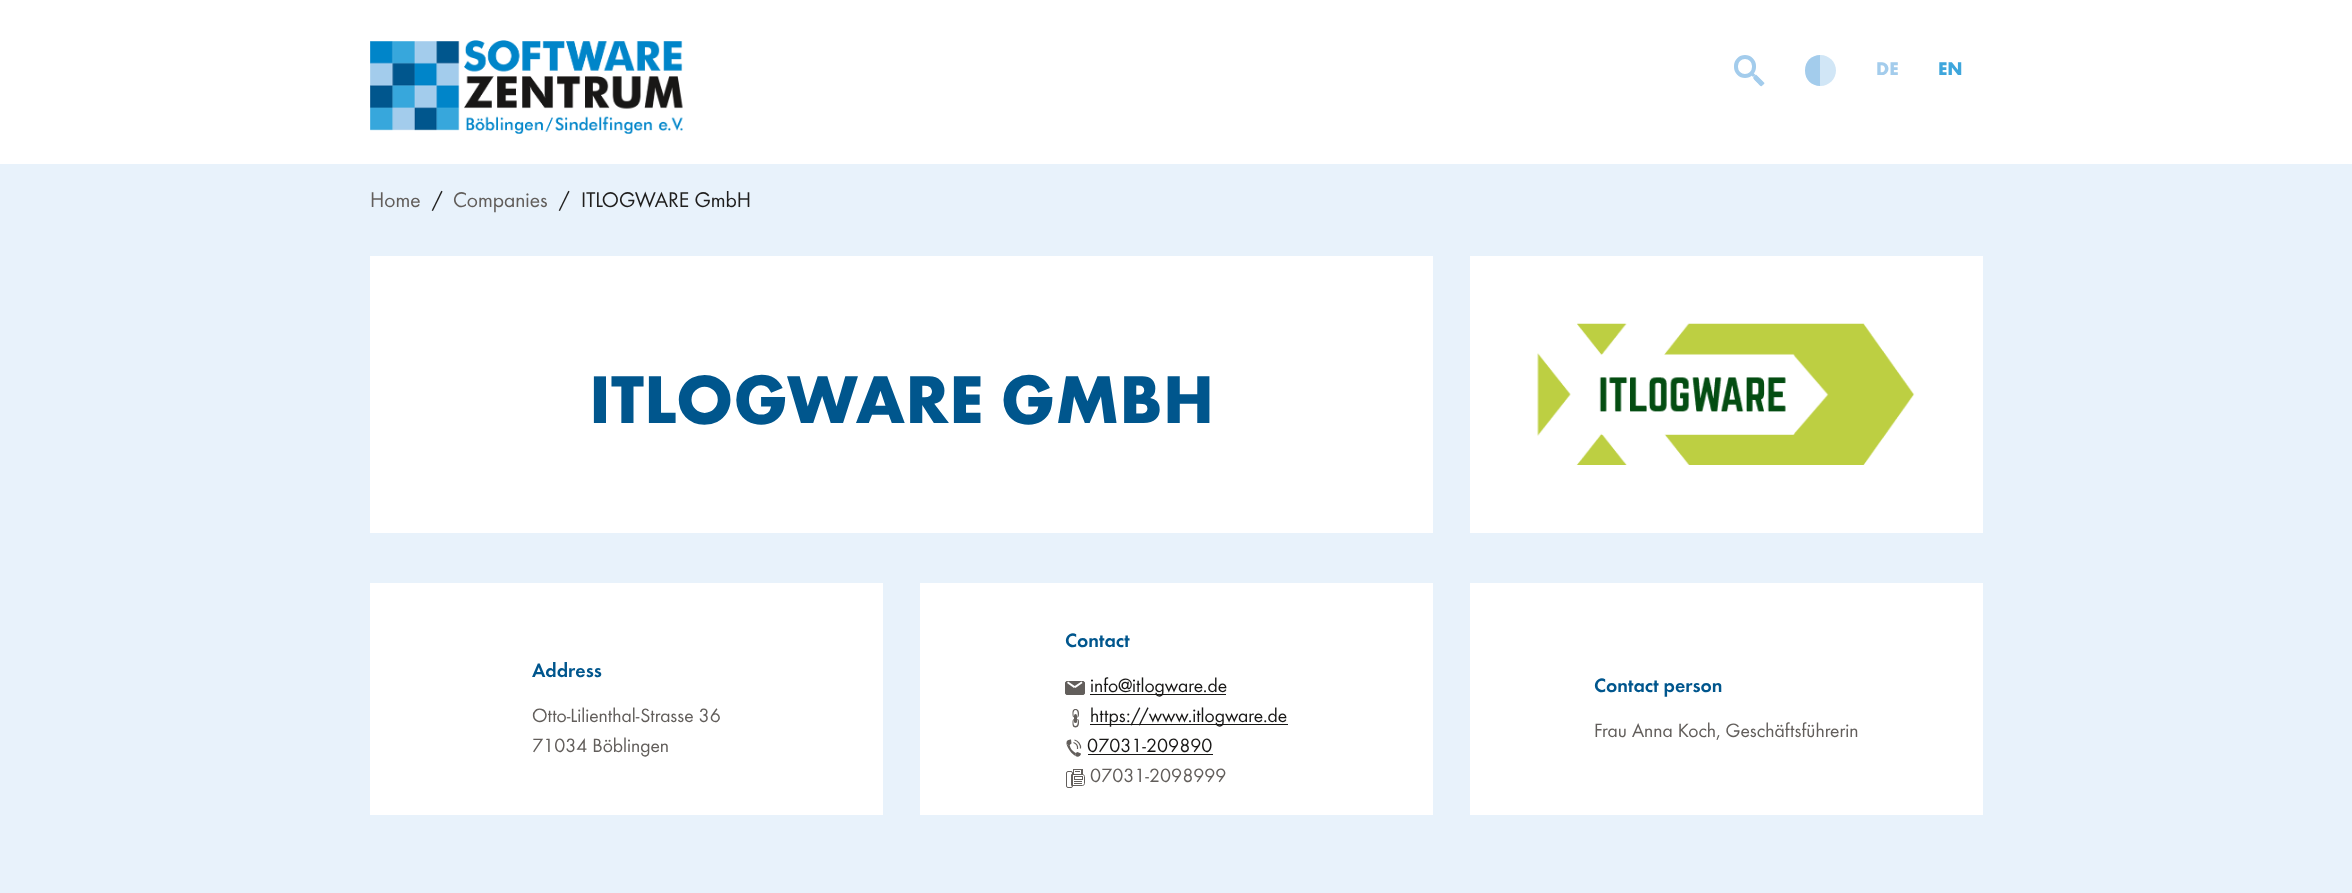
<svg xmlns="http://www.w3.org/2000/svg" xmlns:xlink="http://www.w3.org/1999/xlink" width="2352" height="893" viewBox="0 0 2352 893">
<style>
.cls-1{font:bold 19px Futura;fill:#a3ccec}
.cls-2{font:bold 19px Futura;fill:#3ea6dc}
.cls-3{font:22px Futura;fill:#625e5b}
.cls-4{font:22px Futura;fill:#1f1e1d}
.cls-5{font:bold 70px Futura;fill:#00568d}
.cls-6{font:20px 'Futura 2';fill:#00568d}
.cls-7{font:20px Futura;fill:#625e5b}
.cls-8{font:20px Futura;fill:#181716}
</style>
<rect width="100%" height="100%" fill="#ffffff"/>
<image xlink:href="image0.png" x="370" y="40" width="313" height="94"/>
<rect fill="none" stroke="#a3ccec" stroke-width="4" x="1736" y="57" width="18" height="19" rx="9"/>
<path fill="#a3ccec" d="M1752 71.5L1750 74L1753 77L1755.5 75Z"/>
<path fill="#a3ccec" d="M1756.5 75L1764.5 83C1764.5 83.5 1764 84 1763.5 84.5C1760.5 87.5 1761 86.5 1758 83.5L1754.5 80C1753 78 1752.5 78 1754 76.5C1754.5 76 1755.5 74 1756.5 75Z"/>
<path fill="#a3ccec" d="M1760 79L1762.5 81.5L1760 84.5L1757 82Z"/>
<path fill="#a3ccec" d="M1757.5 76.5L1760 79L1757 82L1754.5 79.5Z"/>
<path fill="#a3ccec" d="M1820 55V86C1811.5 86 1805 79.5 1805 71V70C1805 61.5 1811.5 55 1820 55Z"/>
<path fill="#d1e6f6" d="M1820 55H1820.5C1829 55 1836 62 1836 70.5C1836 79 1829 86 1820.5 86H1820Z"/>
<rect fill="#e8f2fb" x="0" y="164" width="2352" height="729"/>
<rect fill="#ffffff" x="370" y="256" width="1063" height="277"/>
<rect fill="#ffffff" x="1470" y="256" width="513" height="277"/>
<image xlink:href="image1.png" x="1537" y="323" width="378" height="142"/>
<rect fill="#ffffff" x="370" y="583" width="513" height="232"/>
<rect fill="#ffffff" x="920" y="583" width="513" height="232"/>
<rect fill="#625e5b" stroke="#625e5b" x="1065.5" y="681.5" width="19" height="13" rx="1.5"/>
<path fill="#ffffff" d="M1067 683L1068 681.5L1075.5 686.5L1074 688Z"/>
<path fill="#ffffff" d="M1081.5 681.5L1082.5 683L1075.5 688L1074 686.5Z"/>
<rect fill="#181716" x="1090" y="694" width="136" height="1"/>
<rect fill="#625e5b" x="1074" y="714" width="3" height="9" rx="1.5"/>
<path fill="#625e5b" fill-rule="evenodd" d="M1075.5 709C1078.5 709 1079 711.5 1079 713.5C1079 715 1079 717.5 1077 717.5C1073 717.5 1072.5 717.5 1072.5 713.5C1072.5 711.5 1072.5 709 1075.5 709ZM1075.5 710C1078.5 710 1078 717 1077 717.5H1074.5C1073.5 717.5 1072.5 710 1075.5 710ZM1074.5 719C1078 719 1079 718.5 1079 722.5C1079 724.5 1078.5 727.5 1075.5 727.5C1072.5 727.5 1072.5 724.5 1072.5 722.5C1072.5 721 1072.5 719 1074.5 719ZM1074.5 719H1077C1078 719.5 1078.5 726 1075.5 726C1072.5 726 1073.5 719 1074.5 719Z"/>
<rect fill="#181716" x="1090" y="724" width="198" height="1"/>
<path fill="#625e5b" d="M1067.5 740.5C1066.5 741 1066.5 742.5 1066.5 744L1070 746C1069.5 744.5 1070.5 744 1071.5 743.5L1071 739.5C1070 739.5 1069 739.5 1067.5 740.5ZM1081 753.5C1081 756.5 1077.5 757.5 1075.5 756L1075 752.5L1075.5 753L1077.5 752Z"/>
<path fill="#625e5b" d="M1075.5 756C1071.5 754 1067.5 748 1066.5 744L1070 746C1070 748 1073 751.5 1075 752.5Z"/>
<path fill="none" stroke="#625e5b" stroke-width="1.2" d="M1073.5 742.5C1076 743.5 1078 746 1077.5 749M1074.5 740C1078 741 1081 744.5 1080.5 748.5"/>
<rect fill="#181716" x="1088" y="754" width="125" height="1"/>
<rect fill="none" stroke="#625e5b" x="1066.5" y="771.5" width="6" height="16" rx="1.5"/>
<rect fill="#625e5b" x="1074" y="783" width="8" height="1"/>
<rect fill="#625e5b" x="1074" y="781" width="8" height="1"/>
<path fill="#625e5b" d="M1075 769V770H1081V775H1083V769Z"/>
<path fill="#625e5b" d="M1073 769V775H1074V770H1080V769Z"/>
<rect fill="#625e5b" x="1075" y="771" width="5" height="1"/>
<path fill="none" stroke="#625e5b" d="M1071.5 774.5H1082.5C1083.5 774.5 1084.5 775.5 1084.5 776.5V783.5C1084.5 784.5 1083.5 785.5 1082.5 785.5H1071.5Z"/>
<rect fill="none" stroke="#625e5b" x="1074.5" y="776.5" width="8" height="3"/>
<rect fill="#ffffff" x="1470" y="583" width="513" height="232"/>
<text class="cls-1" x="1876" y="75">DE</text>
<text class="cls-2" x="1938" y="75">EN</text>
<text class="cls-3" x="370" y="207">Home</text>
<text class="cls-4" x="432" y="207">/</text>
<text class="cls-3" x="453" y="207">Companies</text>
<text class="cls-4" x="559" y="207">/</text>
<text class="cls-4" x="581" y="207">ITLOGWARE GmbH</text>
<text class="cls-5" x="589" y="423">ITLOGWARE GMBH</text>
<text class="cls-6" x="532" y="677">Address</text>
<text class="cls-7"><tspan x="532" y="722">Otto-Lilienthal-Strasse 36</tspan><tspan x="532" y="752">71034 Böblingen</tspan></text>
<text class="cls-6" x="1065" y="647">Contact</text>
<text class="cls-8"><tspan x="1090" y="692">info@itlogware.de</tspan><tspan x="1090" y="722">https://www.itlogware.de</tspan></text>
<text class="cls-8" x="1087" y="752">07031-209890</text>
<text class="cls-7" x="1090" y="782">07031-2098999</text>
<text class="cls-6" x="1594" y="692">Contact person</text>
<text class="cls-7" x="1594" y="737">Frau Anna Koch, Geschäftsführerin</text>
</svg>
